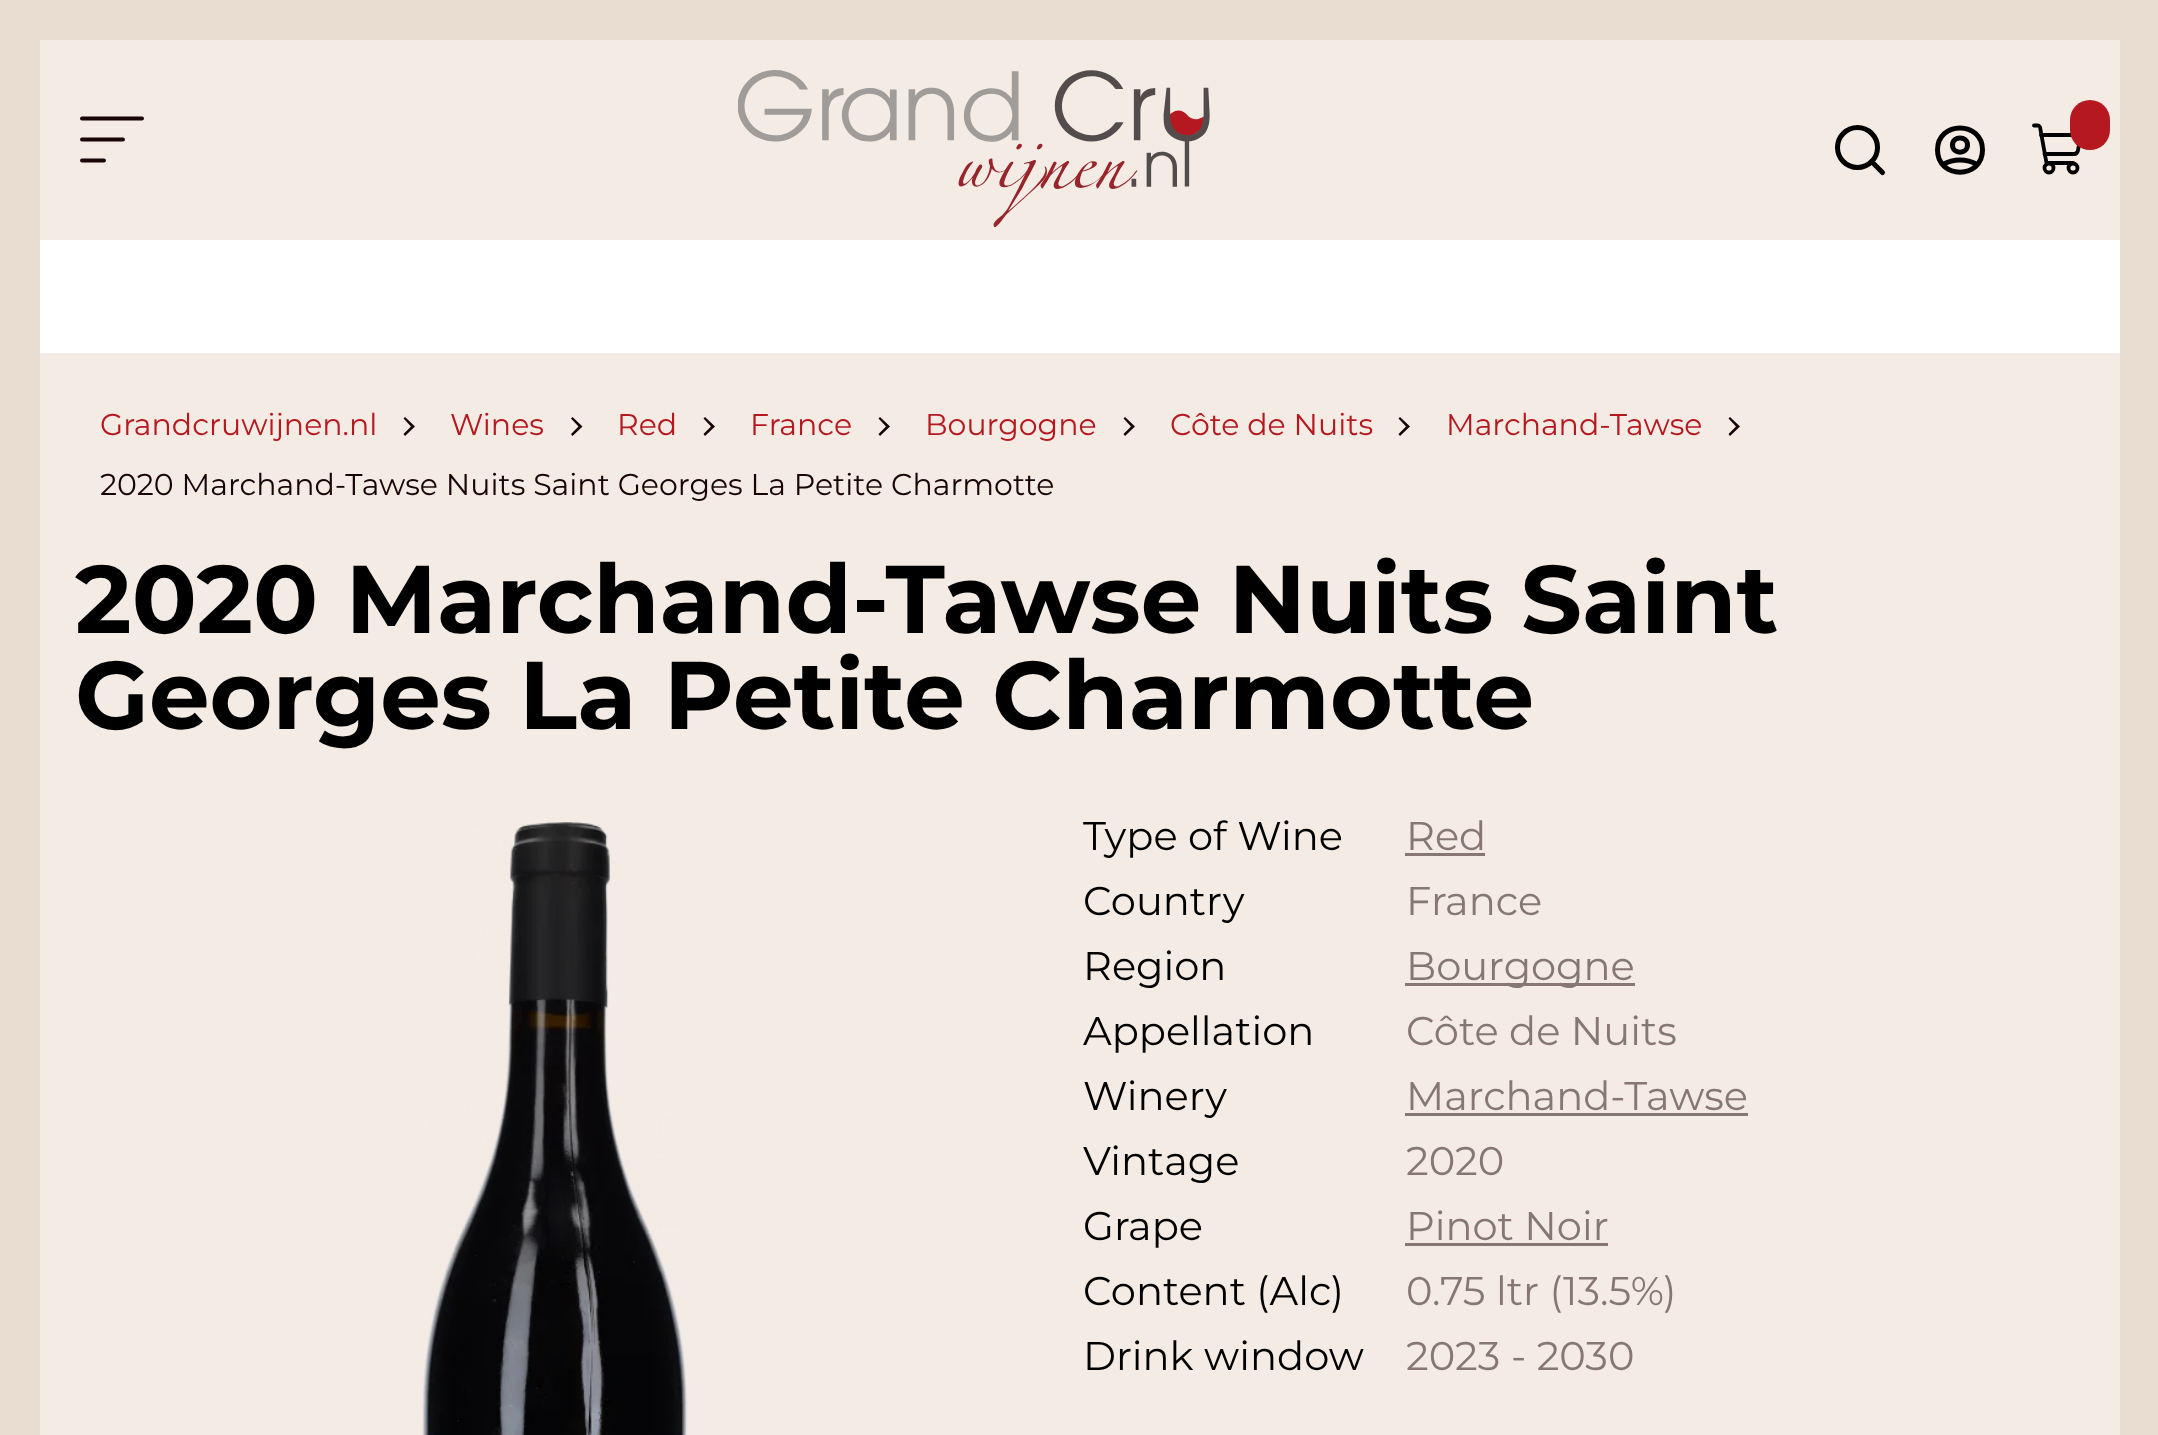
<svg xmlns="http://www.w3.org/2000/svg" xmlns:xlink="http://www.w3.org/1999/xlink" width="2158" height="1435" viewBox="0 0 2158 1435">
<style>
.cls-1{font:30px Montserrat;fill:#b5191f}
.cls-2{font:30px Montserrat;fill:#180306}
.cls-3{font:bold 96px Montserrat;fill:#000000}
.cls-4{font:40px Montserrat;fill:#000000}
.cls-5{font:40px Montserrat;fill:#867775}
</style>
<rect width="100%" height="100%" fill="#e9dcd1"/>
<rect fill="#f3ebe4" x="40" y="353" width="2080" height="1082"/>
<rect fill="#f3ebe4" x="40" y="40" width="2080" height="200"/>
<path fill="none" stroke="#180306" stroke-width="3.9" stroke-linecap="round" stroke-linejoin="round" d="M82 118.5H142"/>
<path fill="none" stroke="#180306" stroke-width="3.9" stroke-linecap="round" stroke-linejoin="round" d="M82 139.5H123M82 160.5H104"/>
<image xlink:href="image0.png" x="738" y="70" width="472" height="158"/>
<circle fill="none" stroke="#000000" stroke-width="5" cx="1857.5" cy="147.5" r="20"/>
<path fill="none" stroke="#000000" stroke-width="5" stroke-linecap="round" stroke-linejoin="round" d="M1882.5 172.5L1871.5 161.5"/>
<path fill="none" stroke="#000000" stroke-width="5" stroke-linecap="round" stroke-linejoin="round" d="M1943 164.5C1953.5 158.5 1966.5 158.5 1977 164.5M1967.5 145C1967.5 154.5 1952.5 154.5 1952.5 145C1952.5 135.5 1967.5 135.5 1967.5 145ZM1982.5 150C1982.5 179.5 1937.5 179.5 1937.5 150C1937.5 120.5 1982.5 120.5 1982.5 150Z"/>
<path fill="none" stroke="#000000" stroke-width="3.8" stroke-linecap="round" stroke-linejoin="round" d="M2073 163H2046.5L2040 127C2039.5 126.5 2039 125.5 2038 125.5H2034"/>
<circle fill="none" stroke="#000000" stroke-width="3.8" cx="2049" cy="168" r="4.5"/>
<circle fill="none" stroke="#000000" stroke-width="3.8" cx="2073" cy="168" r="4.5"/>
<path fill="none" stroke="#000000" stroke-width="3.8" stroke-linecap="round" stroke-linejoin="round" d="M2044.5 154H2074C2076 154 2077.5 152.5 2078 150.5L2080.5 135H2041"/>
<rect fill="#b5191f" x="2070" y="100" width="40" height="50" rx="20"/>
<rect fill="#ffffff" x="40" y="240" width="2080" height="113"/>
<path fill="#180306" fill-rule="evenodd" d="M405 417L415 426.5L405 436L403.5 434L411 426.5L403.5 418.5Z"/>
<path fill="#180306" fill-rule="evenodd" d="M572.5 417L582.5 426.5L572.5 436L571 434L578.5 426.5L571 418.5Z"/>
<path fill="#180306" fill-rule="evenodd" d="M705 417L715 426.5L705 436L703.5 434L711 426.5L703.5 418.5Z"/>
<path fill="#180306" fill-rule="evenodd" d="M880 417L890 426.5L880 436L878.5 434L886 426.5L878.5 418.5Z"/>
<path fill="#180306" fill-rule="evenodd" d="M1125 417L1135 426.5L1125 436L1123.5 434L1131 426.5L1123.5 418.5Z"/>
<path fill="#180306" fill-rule="evenodd" d="M1400 417L1410 426.5L1400 436L1398.5 434L1406 426.5L1398.5 418.5Z"/>
<path fill="#180306" fill-rule="evenodd" d="M1730 417L1740 426.5L1730 436L1728.5 434L1736 426.5L1728.5 418.5Z"/>
<image xlink:href="image1.png" x="422" y="822" width="266" height="613"/>
<rect fill="#867775" x="1405" y="853" width="80" height="3"/>
<rect fill="#867775" x="1405" y="983" width="230" height="3"/>
<rect fill="#867775" x="1405" y="1113" width="343" height="3"/>
<rect fill="#867775" x="1405" y="1243" width="203" height="3"/>
<text class="cls-1" x="100" y="435">Grandcruwijnen.nl</text>
<text class="cls-1" x="450" y="435">Wines</text>
<text class="cls-1" x="617" y="435">Red</text>
<text class="cls-1" x="750" y="435">France</text>
<text class="cls-1" x="925" y="435">Bourgogne</text>
<text class="cls-1" x="1170" y="435">Côte de Nuits</text>
<text class="cls-1" x="1446" y="435">Marchand-Tawse</text>
<text class="cls-2" x="100" y="495">2020 Marchand-Tawse Nuits Saint Georges La Petite Charmotte</text>
<text class="cls-3"><tspan x="75" y="633">2020 Marchand-Tawse Nuits Saint</tspan><tspan x="75" y="729">Georges La Petite Charmotte</tspan></text>
<text class="cls-4" x="1083" y="850">Type of Wine</text>
<text class="cls-5" x="1406" y="850">Red</text>
<text class="cls-4" x="1083" y="915">Country</text>
<text class="cls-5" x="1406" y="915">France</text>
<text class="cls-4" x="1083" y="980">Region</text>
<text class="cls-5" x="1406" y="980">Bourgogne</text>
<text class="cls-4" x="1083" y="1045">Appellation</text>
<text class="cls-5" x="1406" y="1045">Côte de Nuits</text>
<text class="cls-4" x="1083" y="1110">Winery</text>
<text class="cls-5" x="1406" y="1110">Marchand-Tawse</text>
<text class="cls-4" x="1083" y="1175">Vintage</text>
<text class="cls-5" x="1406" y="1175">2020</text>
<text class="cls-4" x="1083" y="1240">Grape</text>
<text class="cls-5" x="1406" y="1240">Pinot Noir</text>
<text class="cls-4" x="1083" y="1305">Content (Alc)</text>
<text class="cls-5" x="1406" y="1305">0.75 ltr (13.5%)</text>
<text class="cls-4" x="1083" y="1370">Drink window</text>
<text class="cls-5" x="1406" y="1370">2023 - 2030</text>
</svg>
